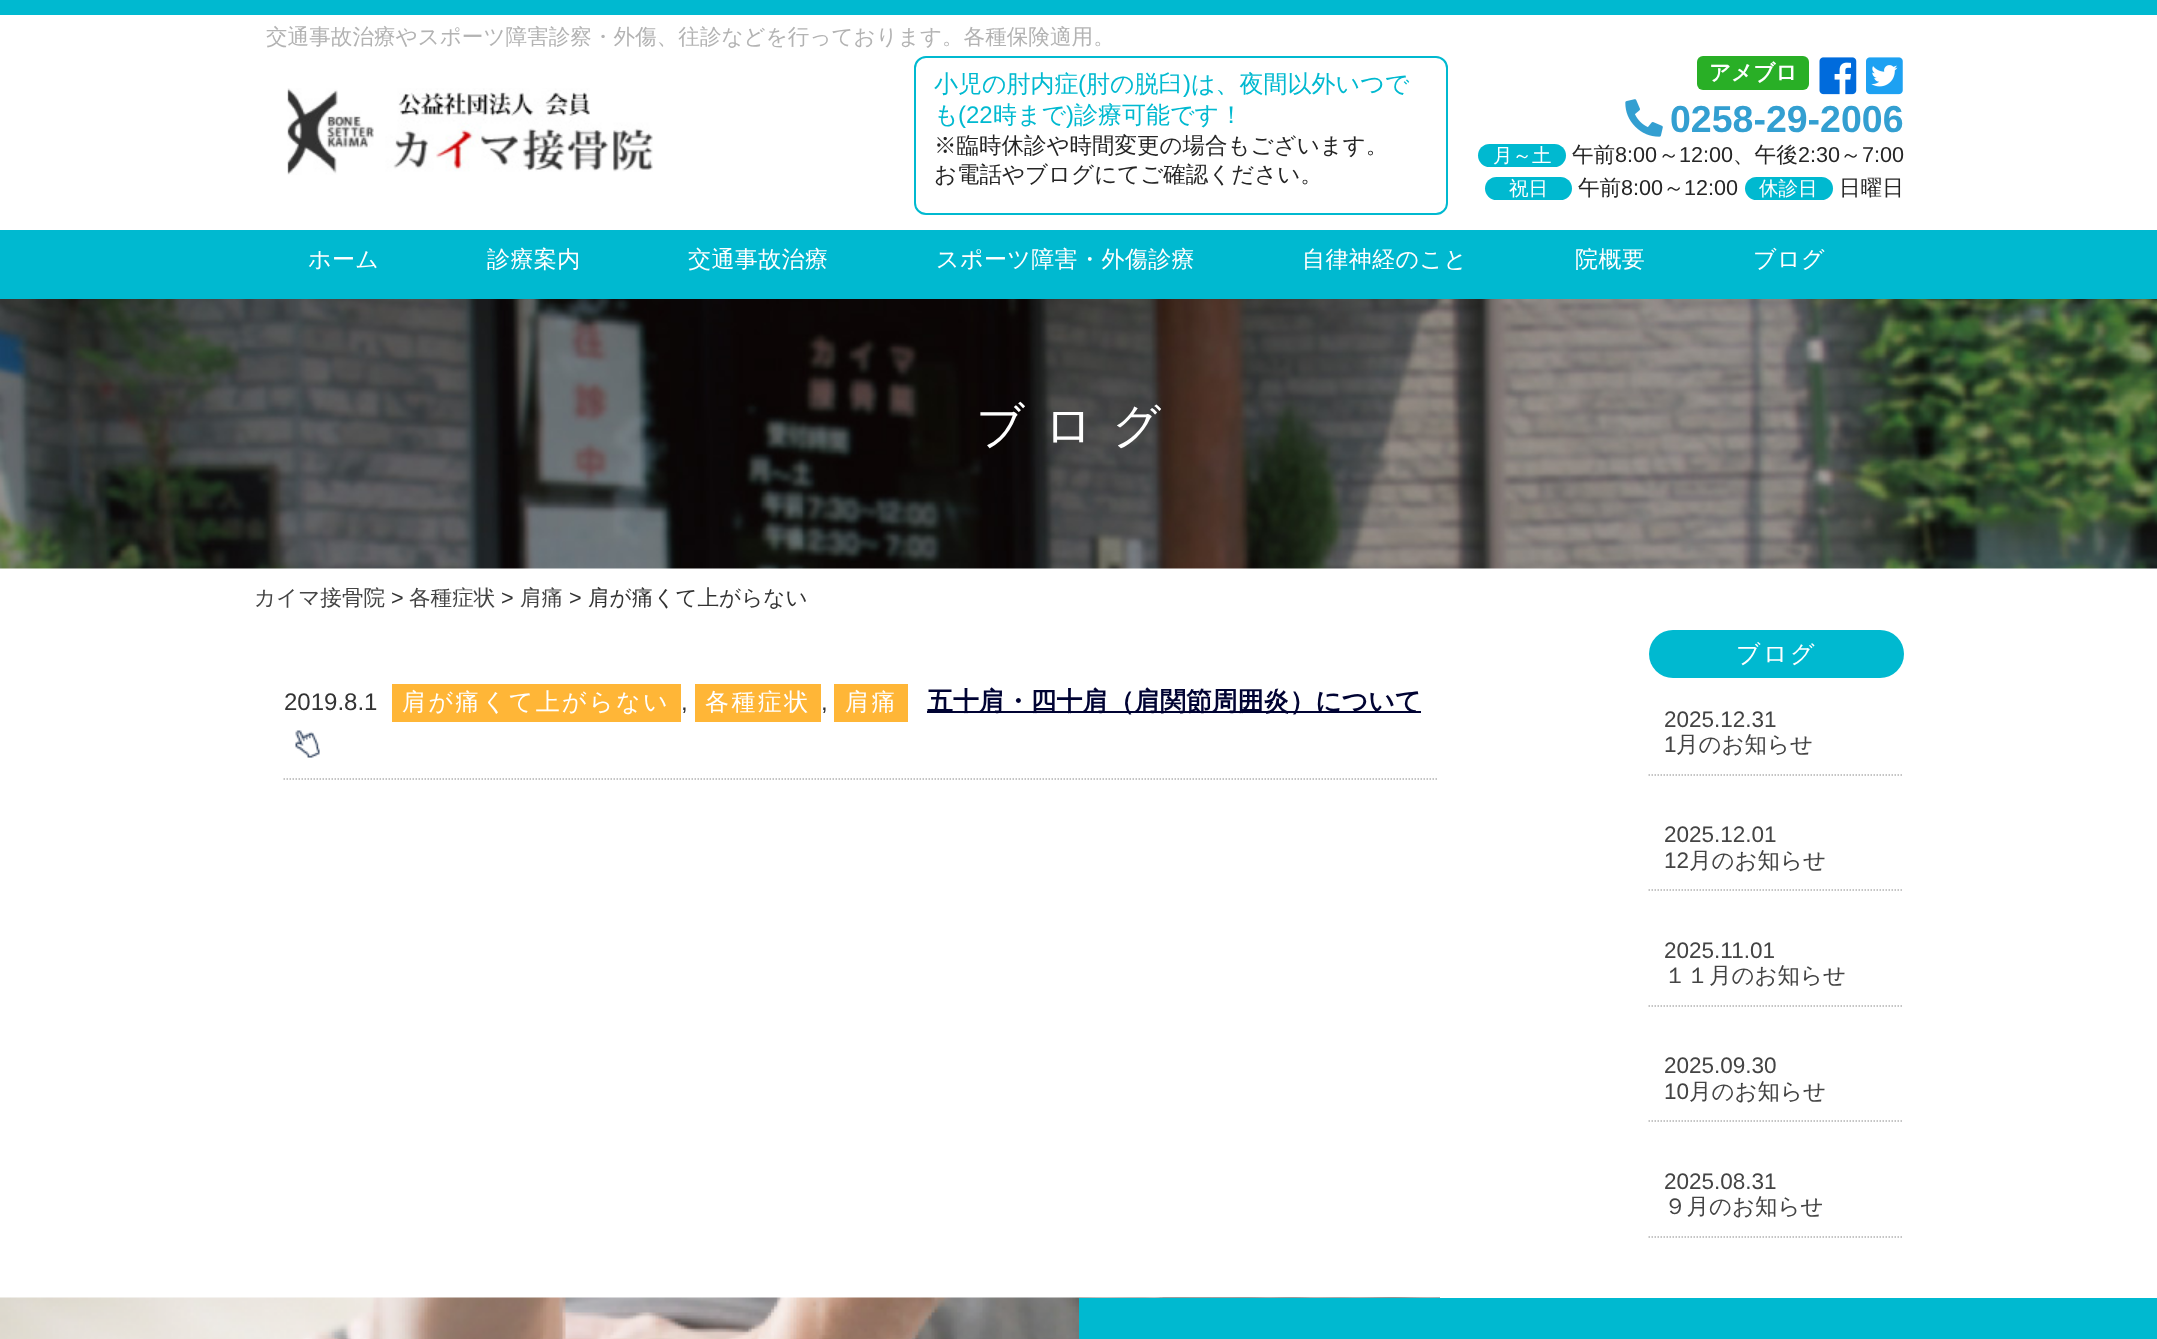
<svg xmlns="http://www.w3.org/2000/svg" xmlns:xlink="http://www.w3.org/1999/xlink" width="2157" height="1339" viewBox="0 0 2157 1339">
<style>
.cls-1{font:500 21.6px WenQuanYi Zen Hei;fill:#b3b3b3}
.cls-2{font:500 24px WenQuanYi Zen Hei;fill:#00b9d0}
.cls-3{font:24px Liberation Sans;fill:#00b9d0}
.cls-4{font:500 22.5px WenQuanYi Zen Hei;fill:#252525}
.cls-5{font:bold 21.6px WenQuanYi Zen Hei;fill:#ffffff}
.cls-6{font:bold 37.5px Liberation Sans;fill:#339fd1}
.cls-7{font:500 19.5px WenQuanYi Zen Hei;fill:#ffffff}
.cls-8{font:500 21.6px WenQuanYi Zen Hei;fill:#252525}
.cls-9{font:21.6px Liberation Sans;fill:#252525}
.cls-10{font:500 23px WenQuanYi Zen Hei;letter-spacing:0.4px;fill:#ffffff}
.cls-11{font:500 48px WenQuanYi Zen Hei;letter-spacing:19px;fill:#ffffff}
.cls-12{font:500 21.6px WenQuanYi Zen Hei;fill:#444444}
.cls-13{font:21.6px Liberation Sans;fill:#333333}
.cls-14{font:500 21.6px WenQuanYi Zen Hei;fill:#333333}
.cls-15{font:24px Liberation Sans;fill:#333333}
.cls-16{font:500 24px WenQuanYi Zen Hei;letter-spacing:2.4px;fill:#ffffff}
.cls-17{font:bold 25.9px WenQuanYi Zen Hei;fill:#000333}
.cls-18{font:22.5px Liberation Sans;fill:#444444}
.cls-19{font:500 22.5px WenQuanYi Zen Hei;fill:#444444}
</style>
<rect width="100%" height="100%" fill="#ffffff"/>
<rect fill="#00b9d0" x="0" y="0" width="2157" height="15"/>
<image xlink:href="image0.png" x="287" y="88" width="366" height="87"/>
<rect fill="none" stroke="#00b9d0" stroke-width="2" x="915" y="57" width="532" height="157" rx="11"/>
<rect fill="#29af26" x="1697" y="56" width="112" height="34" rx="6"/>
<image xlink:href="image1.png" x="1819" y="57" width="38" height="38"/>
<image xlink:href="image2.png" x="1866" y="57" width="37" height="38"/>
<image xlink:href="image3.png" x="1625" y="99" width="38" height="38"/>
<rect fill="#00b9d0" x="1478" y="144" width="88" height="23" rx="11.5"/>
<rect fill="#00b9d0" x="1485" y="177" width="87" height="23" rx="11.5"/>
<rect fill="#00b9d0" x="1745" y="177" width="88" height="23" rx="11.5"/>
<rect fill="#00b9d0" x="0" y="230" width="2157" height="69"/>
<image xlink:href="image4.png" x="0" y="299" width="2157" height="270"/>
<path fill="none" stroke="#b3b3b3" stroke-width="1.5" stroke-dasharray="1.5 1.5" d="M283.5 779H1438.5"/>
<rect fill="#ffb637" x="392" y="684" width="289" height="38"/>
<rect fill="#ffb637" x="695" y="684" width="126" height="38"/>
<rect fill="#ffb637" x="834" y="684" width="74" height="38"/>
<rect fill="#000333" x="927" y="711" width="494" height="2"/>
<image xlink:href="image5.png" x="295" y="730" width="25" height="28"/>
<rect fill="#00b9d0" x="1649" y="630" width="255" height="48" rx="24"/>
<path fill="none" stroke="#b3b3b3" stroke-width="1.5" stroke-dasharray="1.5 1.5" d="M1648.5 775H1903.5"/>
<path fill="none" stroke="#b3b3b3" stroke-width="1.5" stroke-dasharray="1.5 1.5" d="M1648.5 890H1903.5"/>
<path fill="none" stroke="#b3b3b3" stroke-width="1.5" stroke-dasharray="1.5 1.5" d="M1648.5 1006H1903.5"/>
<path fill="none" stroke="#b3b3b3" stroke-width="1.5" stroke-dasharray="1.5 1.5" d="M1648.5 1121H1903.5"/>
<path fill="none" stroke="#b3b3b3" stroke-width="1.5" stroke-dasharray="1.5 1.5" d="M1648.5 1237H1903.5"/>
<image xlink:href="image6.png" x="0" y="1297" width="1440" height="42"/>
<rect fill="#00b9d0" x="1079" y="1298" width="1078" height="41"/>
<text class="cls-1" x="266" y="44">交通事故治療やスポーツ障害診察・外傷、往診などを行っております。各種保険適用。</text>
<text class="cls-2" x="934" y="92">小児の肘内症</text>
<text class="cls-3" x="1078" y="92">(</text>
<text class="cls-2" x="1086" y="92">肘の脱臼</text>
<text class="cls-3" x="1183" y="92">)</text>
<text class="cls-2" x="1191" y="92">は、夜間以外いつで</text>
<text class="cls-2" x="934" y="123">も</text>
<text class="cls-3" x="958" y="123">(22</text>
<text class="cls-2" x="993" y="123">時まで</text>
<text class="cls-3" x="1066" y="123">)</text>
<text class="cls-2" x="1074" y="123">診療可能です！</text>
<text class="cls-4"><tspan x="934" y="153">※臨時休診や時間変更の場合もございます。</tspan><tspan x="934" y="182">お電話やブログにてご確認ください。</tspan></text>
<text class="cls-5" x="1709" y="80">アメブロ</text>
<text class="cls-6" x="1670" y="132">0258-29-2006</text>
<text class="cls-7" x="1493" y="162">月～土</text>
<text class="cls-8" x="1572" y="162">午前</text>
<text class="cls-9" x="1615" y="162">8:00</text>
<text class="cls-8" x="1658" y="162">～</text>
<text class="cls-9" x="1679" y="162">12:00</text>
<text class="cls-8" x="1733" y="162">、午後</text>
<text class="cls-9" x="1798" y="162">2:30</text>
<text class="cls-8" x="1840" y="162">～</text>
<text class="cls-9" x="1862" y="162">7:00</text>
<text class="cls-7" x="1509" y="195">祝日</text>
<text class="cls-8" x="1578" y="195">午前</text>
<text class="cls-9" x="1621" y="195">8:00</text>
<text class="cls-8" x="1663" y="195">～</text>
<text class="cls-9" x="1684" y="195">12:00</text>
<text class="cls-7" x="1759" y="195">休診日</text>
<text class="cls-8" x="1839" y="195">日曜日</text>
<text class="cls-10" x="308" y="267">ホーム</text>
<text class="cls-10" x="487" y="267">診療案内</text>
<text class="cls-10" x="688" y="267">交通事故治療</text>
<text class="cls-10" x="936" y="267">スポーツ障害・外傷診療</text>
<text class="cls-10" x="1302" y="267">自律神経のこと</text>
<text class="cls-10" x="1575" y="267">院概要</text>
<text class="cls-10" x="1753" y="267">ブログ</text>
<text class="cls-11" x="976" y="442">ブログ</text>
<text class="cls-12" x="254" y="605">カイマ接骨院</text>
<text class="cls-13" x="391" y="605">&gt;</text>
<text class="cls-12" x="409" y="605">各種症状</text>
<text class="cls-13" x="501" y="605">&gt;</text>
<text class="cls-12" x="520" y="605">肩痛</text>
<text class="cls-13" x="569" y="605">&gt;</text>
<text class="cls-14" x="588" y="605">肩が痛くて上がらない</text>
<text class="cls-15" x="284" y="710">2019.8.1</text>
<text class="cls-16" x="402" y="710">肩が痛くて上がらない</text>
<text class="cls-15" x="681" y="710">,</text>
<text class="cls-16" x="705" y="710">各種症状</text>
<text class="cls-15" x="821" y="710">,</text>
<text class="cls-16" x="845" y="710">肩痛</text>
<text class="cls-17" x="927" y="710">五十肩・四十肩（肩関節周囲炎）について</text>
<text class="cls-16" x="1736" y="662">ブログ</text>
<text class="cls-18"><tspan x="1664" y="727">2025.12.31</tspan><tspan x="1664" y="752">1</tspan></text>
<text class="cls-19" x="1676" y="752">月のお知らせ</text>
<text class="cls-18"><tspan x="1664" y="842">2025.12.01</tspan><tspan x="1664" y="868">12</tspan></text>
<text class="cls-19" x="1689" y="868">月のお知らせ</text>
<text class="cls-18" x="1664" y="958">2025.11.01</text>
<text class="cls-19" x="1664" y="983">１１月のお知らせ</text>
<text class="cls-18"><tspan x="1664" y="1073">2025.09.30</tspan><tspan x="1664" y="1099">10</tspan></text>
<text class="cls-19" x="1689" y="1099">月のお知らせ</text>
<text class="cls-18" x="1664" y="1189">2025.08.31</text>
<text class="cls-19" x="1664" y="1214">９月のお知らせ</text>
</svg>
